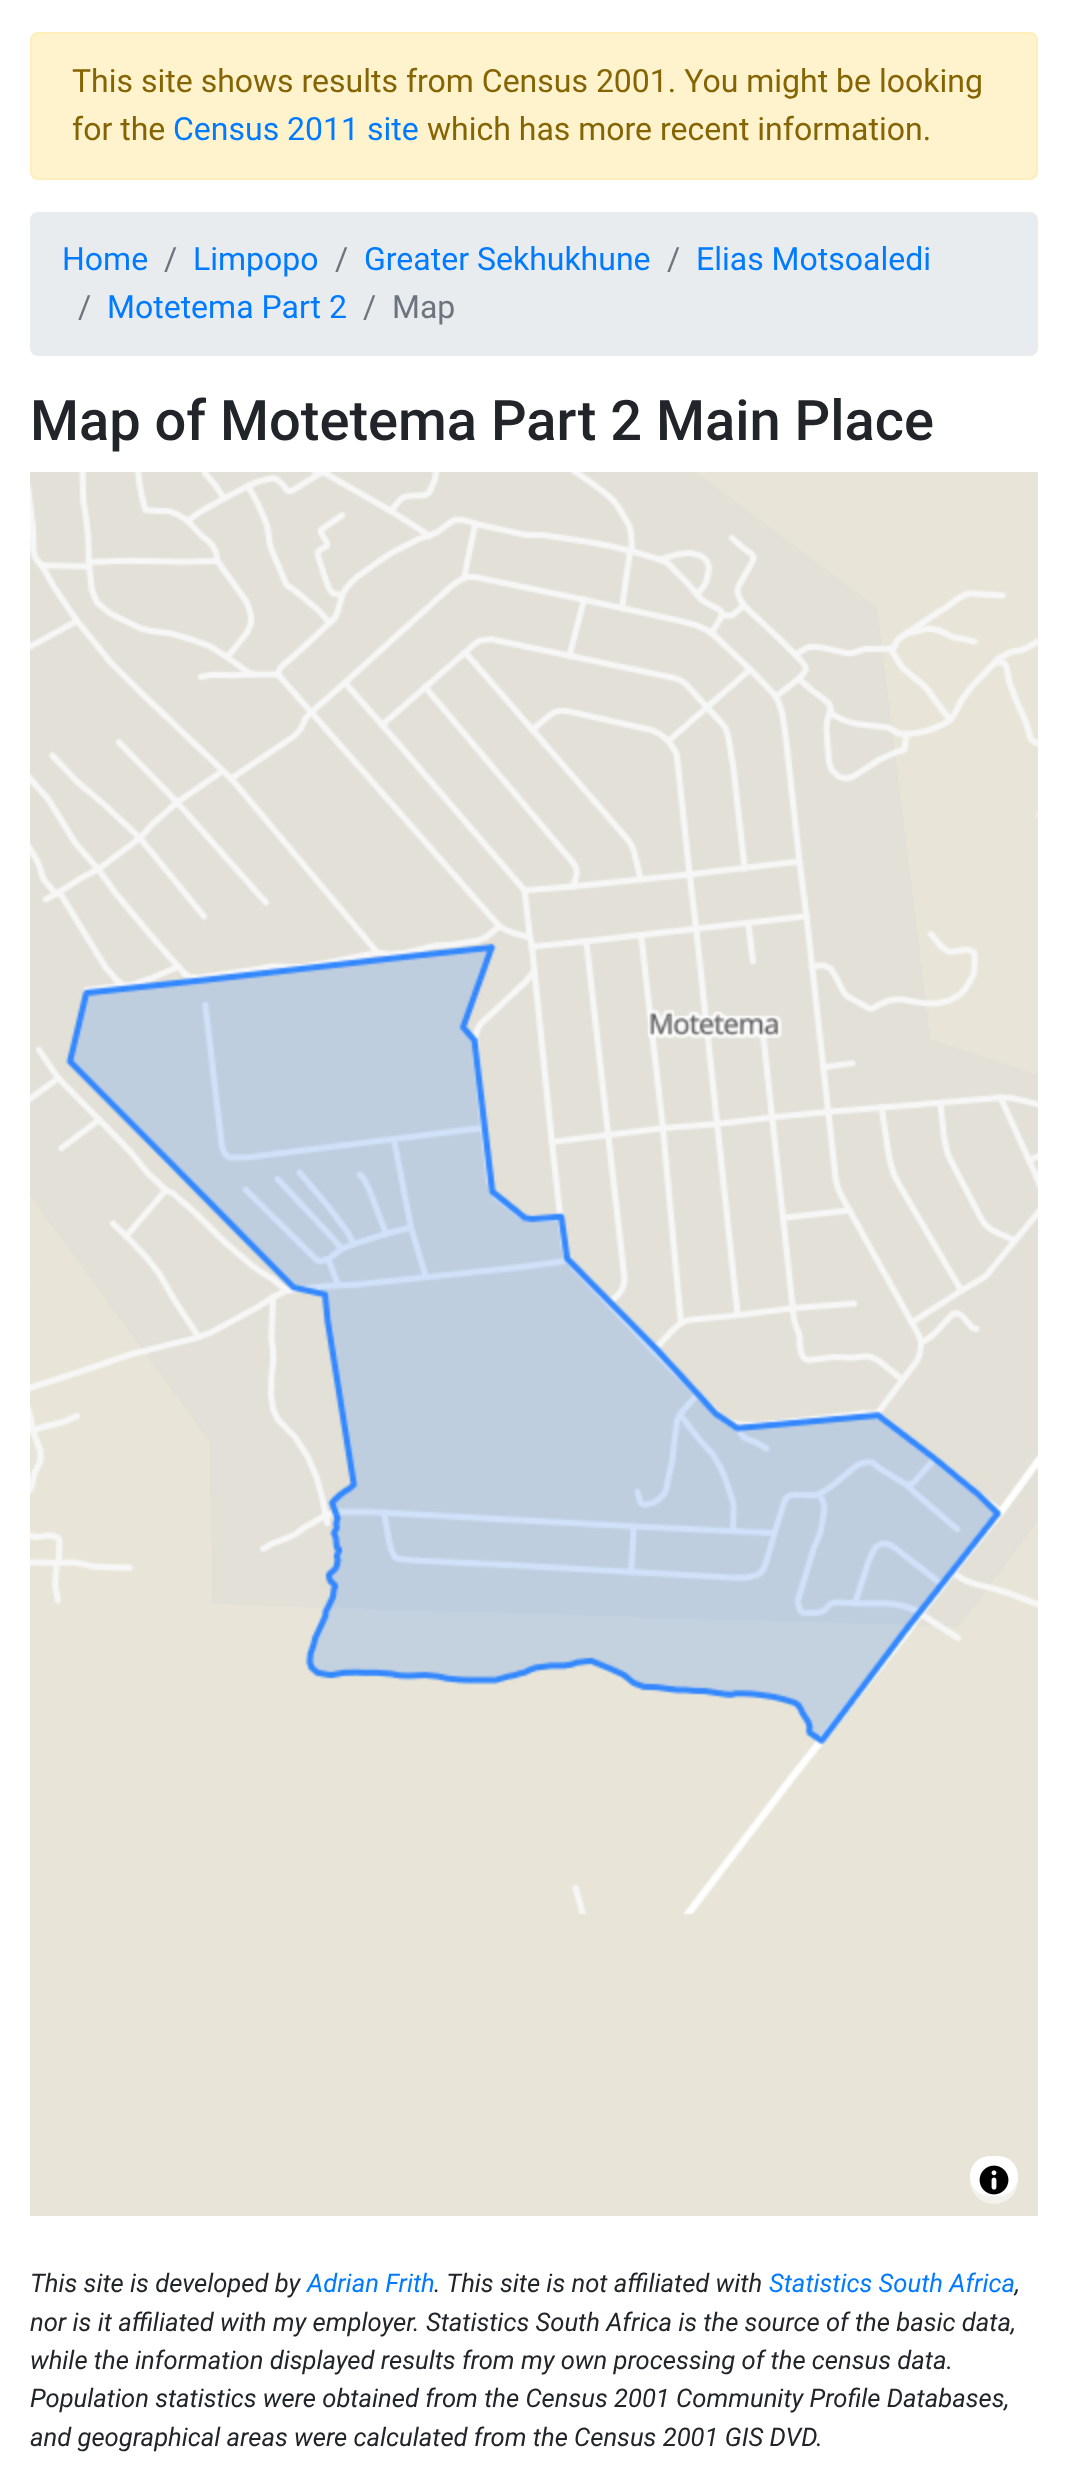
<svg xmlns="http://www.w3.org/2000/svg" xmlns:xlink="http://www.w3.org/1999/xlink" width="1067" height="2488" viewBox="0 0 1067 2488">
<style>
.cls-1{font:32px Roboto;fill:#856404}
.cls-2{font:32px Roboto;fill:#007bff}
.cls-3{font:32px Roboto;fill:#6c757d}
.cls-4{font:500 56px Roboto;fill:#212529}
.cls-5{font:italic 25.6px Roboto;fill:#212529}
.cls-6{font:italic 25.6px Roboto;fill:#007bff}
</style>
<rect width="100%" height="100%" fill="#ffffff"/>
<rect fill="#fff3cd" stroke="#ffeeba" stroke-width="2" x="31" y="33" width="1006" height="146" rx="7"/>
<rect fill="#e9ecef" x="30" y="212" width="1008" height="144" rx="8"/>
<image xlink:href="image0.png" x="30" y="472" width="1008" height="1744"/>
<rect fill="#ffffff" x="970" y="2156" width="48" height="40" rx="20"/>
<circle fill="#ffffff" fill-opacity="0.5" cx="994" cy="2180" r="24"/>
<image xlink:href="image1.png" x="979" y="2165" width="30" height="30"/>
<text class="cls-1"><tspan x="72" y="92">This site shows results from Census 2001. You might be looking</tspan><tspan x="72" y="140">for the</tspan></text>
<text class="cls-2" x="173" y="140">Census 2011 site</text>
<text class="cls-1" x="427" y="140">which has more recent information.</text>
<text class="cls-2" x="62" y="270">Home</text>
<text class="cls-3" x="164" y="270">/</text>
<text class="cls-2" x="193" y="270">Limpopo</text>
<text class="cls-3" x="335" y="270">/</text>
<text class="cls-2" x="364" y="270">Greater Sekhukhune</text>
<text class="cls-3" x="667" y="270">/</text>
<text class="cls-2" x="696" y="270">Elias Motsoaledi</text>
<text class="cls-3" x="78" y="318">/</text>
<text class="cls-2" x="107" y="318">Motetema Part 2</text>
<text class="cls-3" x="363" y="318">/</text>
<text class="cls-3" x="392" y="318">Map</text>
<text class="cls-4" x="30" y="440">Map of Motetema Part 2 Main Place</text>
<text class="cls-5" x="30" y="2292">This site is developed by</text>
<text class="cls-6" x="307" y="2292">Adrian Frith</text>
<text class="cls-5" x="434" y="2292">. This site is not affiliated with</text>
<text class="cls-6" x="769" y="2292">Statistics South Africa</text>
<text class="cls-5" x="1015" y="2292">,</text>
<text class="cls-5"><tspan x="30" y="2331">nor is it affiliated with my employer. Statistics South Africa is the source of the basic data,</tspan><tspan x="30" y="2369">while the information displayed results from my own processing of the census data.</tspan><tspan x="30" y="2407">Population statistics were obtained from the Census 2001 Community Profile Databases,</tspan><tspan x="30" y="2446">and geographical areas were calculated from the Census 2001 GIS DVD.</tspan></text>
</svg>
